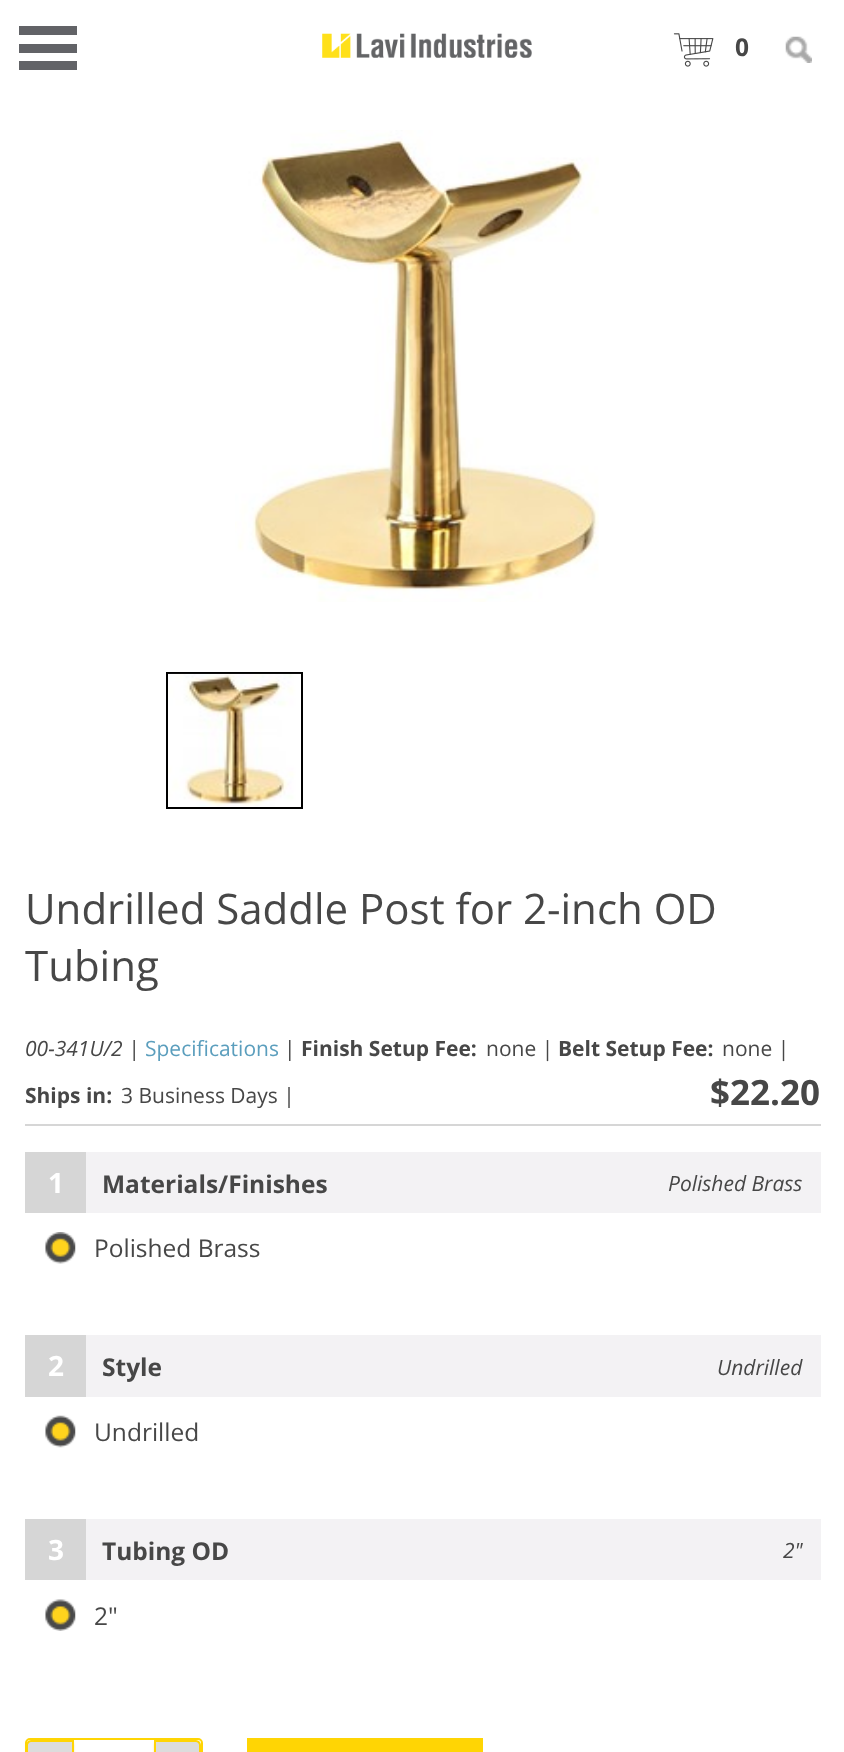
<svg xmlns="http://www.w3.org/2000/svg" xmlns:xlink="http://www.w3.org/1999/xlink" width="844" height="1752" viewBox="0 0 844 1752">
<style>
.cls-1{font:bold 24.5px Open Sans;fill:#474747}
.cls-2{font:42px Open Sans;fill:#474747}
.cls-3{font:italic 21px Open Sans;fill:#474747}
.cls-4{font:21px Open Sans;fill:#5b9ebd}
.cls-5{font:21px Open Sans;fill:#474747}
.cls-6{font:bold 21px Open Sans;fill:#474747}
.cls-7{font:bold 35px Open Sans;fill:#474747}
.cls-8{font:bold 28px Open Sans;fill:#ffffff}
.cls-9{font:24.5px Open Sans;fill:#474747}
</style>
<rect width="100%" height="100%" fill="#ffffff"/>
<rect fill="#626367" x="19" y="61" width="58" height="9"/>
<rect fill="#626367" x="19" y="44" width="58" height="9"/>
<rect fill="#626367" x="19" y="26" width="58" height="9"/>
<image xlink:href="image0.png" x="322" y="33" width="210" height="25"/>
<image xlink:href="image1.png" x="673" y="33" width="41" height="34"/>
<image xlink:href="image2.png" x="785" y="36" width="27" height="27"/>
<image xlink:href="image3.png" x="235" y="130" width="364" height="472"/>
<rect fill="none" stroke="#000000" stroke-width="2" x="167" y="673" width="135" height="135"/>
<image xlink:href="image4.png" x="168" y="673" width="133" height="134"/>
<rect fill="#d6d6d6" x="25" y="1124" width="796" height="2"/>
<rect fill="#f3f2f4" x="86" y="1152" width="735" height="61"/>
<rect fill="#d6d6d6" x="25" y="1152" width="61" height="61"/>
<image xlink:href="image5.png" x="45" y="1232" width="31" height="32"/>
<rect fill="#f3f2f4" x="86" y="1335" width="735" height="62"/>
<rect fill="#d6d6d6" x="25" y="1335" width="61" height="62"/>
<image xlink:href="image6.png" x="45" y="1415" width="31" height="33"/>
<rect fill="#f3f2f4" x="86" y="1519" width="735" height="61"/>
<rect fill="#d6d6d6" x="25" y="1519" width="61" height="61"/>
<image xlink:href="image7.png" x="45" y="1599" width="31" height="32"/>
<rect fill="none" stroke="#ffd504" stroke-width="2" x="26" y="1739" width="176" height="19" rx="4"/>
<rect fill="#ffd504" fill-opacity="0.4" filter="blur(1px)" x="26" y="1741" width="48" height="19" rx="5"/>
<path fill="#dcdcdc" stroke="#ffd504" stroke-width="2" d="M31 1741H73V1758H31C29 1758 27 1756 27 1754V1745C27 1743 29 1741 31 1741Z"/>
<rect fill="#ffd504" fill-opacity="0.4" filter="blur(1px)" x="154" y="1741" width="47" height="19" rx="5"/>
<path fill="#dcdcdc" stroke="#ffd504" stroke-width="2" d="M155 1741H196C198 1741 200 1743 200 1745V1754C200 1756 198 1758 196 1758H155Z"/>
<rect fill="#ffd504" x="247" y="1738" width="236" height="14"/>
<text class="cls-1" x="735" y="56">0</text>
<text class="cls-2"><tspan x="25" y="924">Undrilled Saddle Post for 2-inch OD</tspan><tspan x="25" y="981">Tubing</tspan></text>
<text class="cls-3" x="25" y="1056">00-341U/2 |</text>
<text class="cls-4" x="145" y="1056">Specifications</text>
<text class="cls-5" x="284" y="1056">|</text>
<text class="cls-6" x="301" y="1056">Finish Setup Fee:</text>
<text class="cls-5" x="486" y="1056">none |</text>
<text class="cls-6" x="558" y="1056">Belt Setup Fee:</text>
<text class="cls-5" x="722" y="1056">none |</text>
<text class="cls-6" x="25" y="1103">Ships in:</text>
<text class="cls-5" x="121" y="1103">3 Business Days |</text>
<text class="cls-7" x="710" y="1105">$22.20</text>
<text class="cls-8" x="48" y="1193">1</text>
<text class="cls-1" x="102" y="1193">Materials/Finishes</text>
<text class="cls-3" x="668" y="1191">Polished Brass</text>
<text class="cls-9" x="94" y="1257">Polished Brass</text>
<text class="cls-8" x="48" y="1376">2</text>
<text class="cls-1" x="102" y="1376">Style</text>
<text class="cls-3" x="717" y="1375">Undrilled</text>
<text class="cls-9" x="94" y="1441">Undrilled</text>
<text class="cls-8" x="48" y="1560">3</text>
<text class="cls-1" x="102" y="1560">Tubing OD</text>
<text class="cls-3" x="783" y="1558">2"</text>
<text class="cls-9" x="94" y="1625">2"</text>
</svg>
